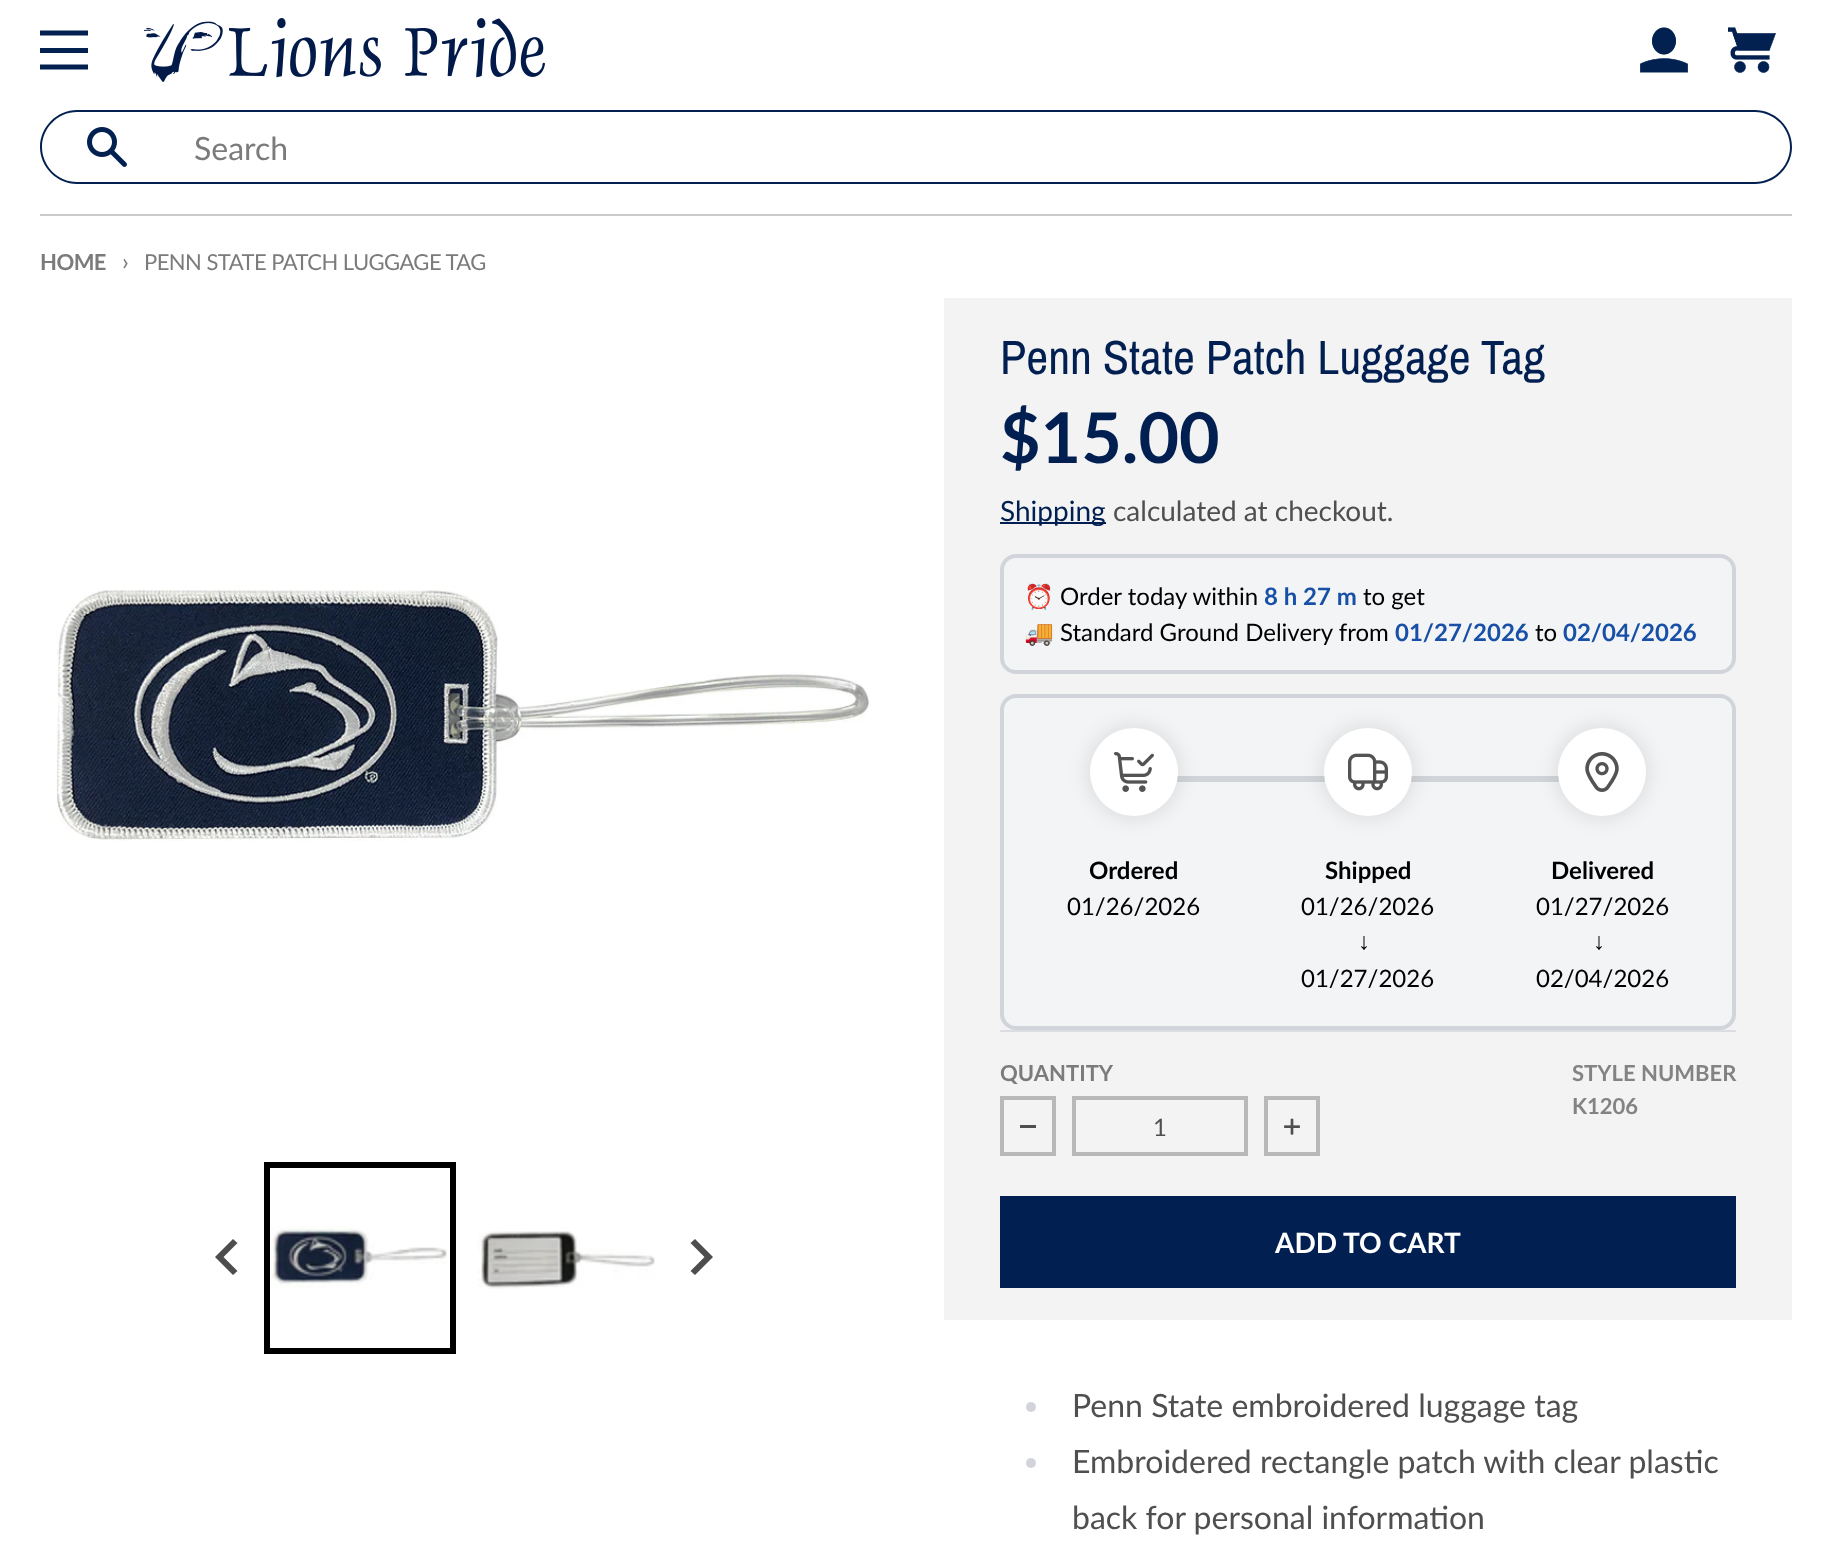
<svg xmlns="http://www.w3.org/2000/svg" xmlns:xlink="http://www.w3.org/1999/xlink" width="1832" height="1544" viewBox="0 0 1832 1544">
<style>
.cls-1{font:32px Lato;fill:#7b7b7b}
.cls-2{font:bold 22px Lato;letter-spacing:-0.55px;fill:#7b7b7b}
.cls-3{font:24px Lato;letter-spacing:-0.55px;fill:#7b7b7b}
.cls-4{font:22px Lato;letter-spacing:-0.55px;fill:#7b7b7b}
.cls-5{font:48px Archivo Narrow;fill:#012051}
.cls-6{font:bold 70px Lato;fill:#012051}
.cls-7{font:28px Lato;fill:#012051}
.cls-8{font:28px Lato;fill:#4f4f4f}
.cls-9{font:24px Noto Color Emoji;fill:#000000}
.cls-10{font:24px Lato;fill:#000000}
.cls-11{font:bold 24px Lato;fill:#1750a6}
.cls-12{font:bold 24px Lato;fill:#000000}
.cls-13{font:24px Liberation Sans;fill:#000000}
.cls-14{font:bold 22px Lato;fill:#7b7b7b}
.cls-15{font:24px Lato;fill:#4f4f4f}
.cls-16{font:bold 22px Lato;fill:#838383}
.cls-17{font:bold 28px Lato;fill:#ffffff}
.cls-18{font:32px Lato;fill:#4f4f4f}
</style>
<rect width="100%" height="100%" fill="#ffffff"/>
<rect fill="#cccbcb" x="40" y="214" width="1752" height="2"/>
<path fill="none" stroke="#022151" stroke-width="5.2" d="M40 33H88"/>
<rect fill="#022151" x="40" y="48" width="48" height="5"/>
<path fill="none" stroke="#022151" stroke-width="5.2" d="M40 67H88"/>
<image xlink:href="image0.png" x="144" y="18" width="401" height="64"/>
<image xlink:href="image1.png" x="1640" y="27" width="48" height="46"/>
<image xlink:href="image2.png" x="1728" y="27" width="48" height="46"/>
<path fill="#022151" fill-rule="evenodd" d="M77 110H172V184H77C57 184 40 167 40 147C40 127 57 110 77 110ZM77 112H172V182H77C58 182 42 166 42 147C42 128 58 112 77 112Z"/>
<image xlink:href="image3.png" x="87" y="127" width="40" height="40"/>
<path fill="#ffffff" d="M170 110H1755C1775.5 110 1792 126.5 1792 147C1792 167.5 1775.5 184 1755 184H170Z"/>
<path fill="#022151" fill-rule="evenodd" d="M170 110H1755C1775 110 1792 127 1792 147C1792 167 1775 184 1755 184H170ZM170 112H1755C1774 112 1790 128 1790 147C1790 166 1774 182 1755 182H170Z"/>
<image xlink:href="image4.png" x="56" y="586" width="815" height="255"/>
<rect fill="none" stroke="#000000" stroke-width="6" x="267" y="1165" width="186" height="186"/>
<image xlink:href="image5.png" x="270" y="1226" width="177" height="62"/>
<image xlink:href="image6.png" x="478" y="1231" width="177" height="58"/>
<path fill="#4d4d4d" d="M233 1239L237.5 1243L223.5 1257L237.5 1271L233 1275L215 1257Z"/>
<path fill="#4d4d4d" d="M695 1239L690.5 1243L704.5 1257L690.5 1271L695 1275L713 1257Z"/>
<rect fill="#f3f3f3" x="944" y="298" width="848" height="1022"/>
<rect fill="#dadde2" x="1000" y="1030" width="736" height="2"/>
<rect fill="#012051" x="1000" y="522" width="106" height="2"/>
<rect fill="#f3f4f6" stroke="#d1d5db" stroke-width="4" x="1002" y="556" width="732" height="116" rx="14"/>
<rect fill="#f3f4f6" stroke="#d1d5db" stroke-width="4" x="1002" y="696" width="732" height="332" rx="14"/>
<rect fill="#d1d4d9" x="1176" y="776" width="150" height="6"/>
<rect fill="#000000" fill-opacity="0.1" filter="blur(10px)" x="1088" y="726" width="92" height="92" rx="46"/>
<circle fill="#ffffff" cx="1134" cy="772" r="44"/>
<image xlink:href="image7.png" x="1114" y="752" width="40" height="40"/>
<rect fill="#d1d4d9" x="1410" y="776" width="150" height="6"/>
<rect fill="#000000" fill-opacity="0.1" filter="blur(10px)" x="1322" y="726" width="92" height="92" rx="46"/>
<circle fill="#ffffff" cx="1368" cy="772" r="44"/>
<image xlink:href="image8.png" x="1348" y="753" width="40" height="38"/>
<rect fill="#000000" fill-opacity="0.1" filter="blur(10px)" x="1556" y="726" width="92" height="92" rx="46"/>
<circle fill="#ffffff" cx="1602" cy="772" r="44"/>
<image xlink:href="image9.png" x="1585" y="752" width="34" height="40"/>
<rect fill="none" stroke="#b8b8b8" stroke-width="4" x="1002" y="1098" width="52" height="56"/>
<rect fill="#4f4f4f" x="1020" y="1125" width="16" height="3"/>
<rect fill="none" stroke="#b8b8b8" stroke-width="4" x="1074" y="1098" width="172" height="56"/>
<rect fill="none" stroke="#b8b8b8" stroke-width="4" x="1266" y="1098" width="52" height="56"/>
<image xlink:href="image10.png" x="1284" y="1118" width="16" height="17"/>
<rect fill="#012051" x="1000" y="1196" width="736" height="92"/>
<circle fill="#d1d5db" cx="1031" cy="1407" r="5"/>
<circle fill="#d1d5db" cx="1031" cy="1463" r="5"/>
<text class="cls-1" x="194" y="160">Search</text>
<text class="cls-2" x="40" y="270">HOME</text>
<text class="cls-3" x="122" y="270">›</text>
<text class="cls-4" x="144" y="270">PENN STATE PATCH LUGGAGE TAG</text>
<text class="cls-5" x="1000" y="374">Penn State Patch Luggage Tag</text>
<text class="cls-6" x="1000" y="463">$15.00</text>
<text class="cls-7" x="1000" y="521">Shipping</text>
<text class="cls-8" x="1113" y="521">calculated at checkout.</text>
<text class="cls-9" x="1024" y="605">⏰</text>
<text class="cls-10" x="1060" y="605">Order today within</text>
<text class="cls-11" x="1264" y="605">8 h 27 m</text>
<text class="cls-10" x="1363" y="605">to get</text>
<text class="cls-9" x="1024" y="641">🚚</text>
<text class="cls-10" x="1060" y="641">Standard Ground Delivery from</text>
<text class="cls-11" x="1395" y="641">01/27/2026</text>
<text class="cls-10" x="1535" y="641">to</text>
<text class="cls-11" x="1563" y="641">02/04/2026</text>
<text class="cls-12" x="1089" y="879">Ordered</text>
<text class="cls-10" x="1067" y="915">01/26/2026</text>
<text class="cls-12" x="1325" y="879">Shipped</text>
<text class="cls-10" x="1301" y="915">01/26/2026</text>
<text class="cls-13" x="1360" y="931" transform="rotate(90 1360 931)">→</text>
<text class="cls-10" x="1301" y="987">01/27/2026</text>
<text class="cls-12" x="1551" y="879">Delivered</text>
<text class="cls-10" x="1536" y="915">01/27/2026</text>
<text class="cls-13" x="1595" y="931" transform="rotate(90 1595 931)">→</text>
<text class="cls-10" x="1536" y="987">02/04/2026</text>
<text class="cls-14" x="1000" y="1081">QUANTITY</text>
<text class="cls-15" x="1153" y="1136">1</text>
<text class="cls-16"><tspan x="1572" y="1081">STYLE NUMBER</tspan><tspan x="1572" y="1114">K1206</tspan></text>
<text class="cls-17" x="1275" y="1253">ADD TO CART</text>
<text class="cls-18"><tspan x="1072" y="1417">Penn State embroidered luggage tag</tspan><tspan x="1072" y="1473">Embroidered rectangle patch with clear plastic</tspan><tspan x="1072" y="1529">back for personal information</tspan></text>
</svg>
